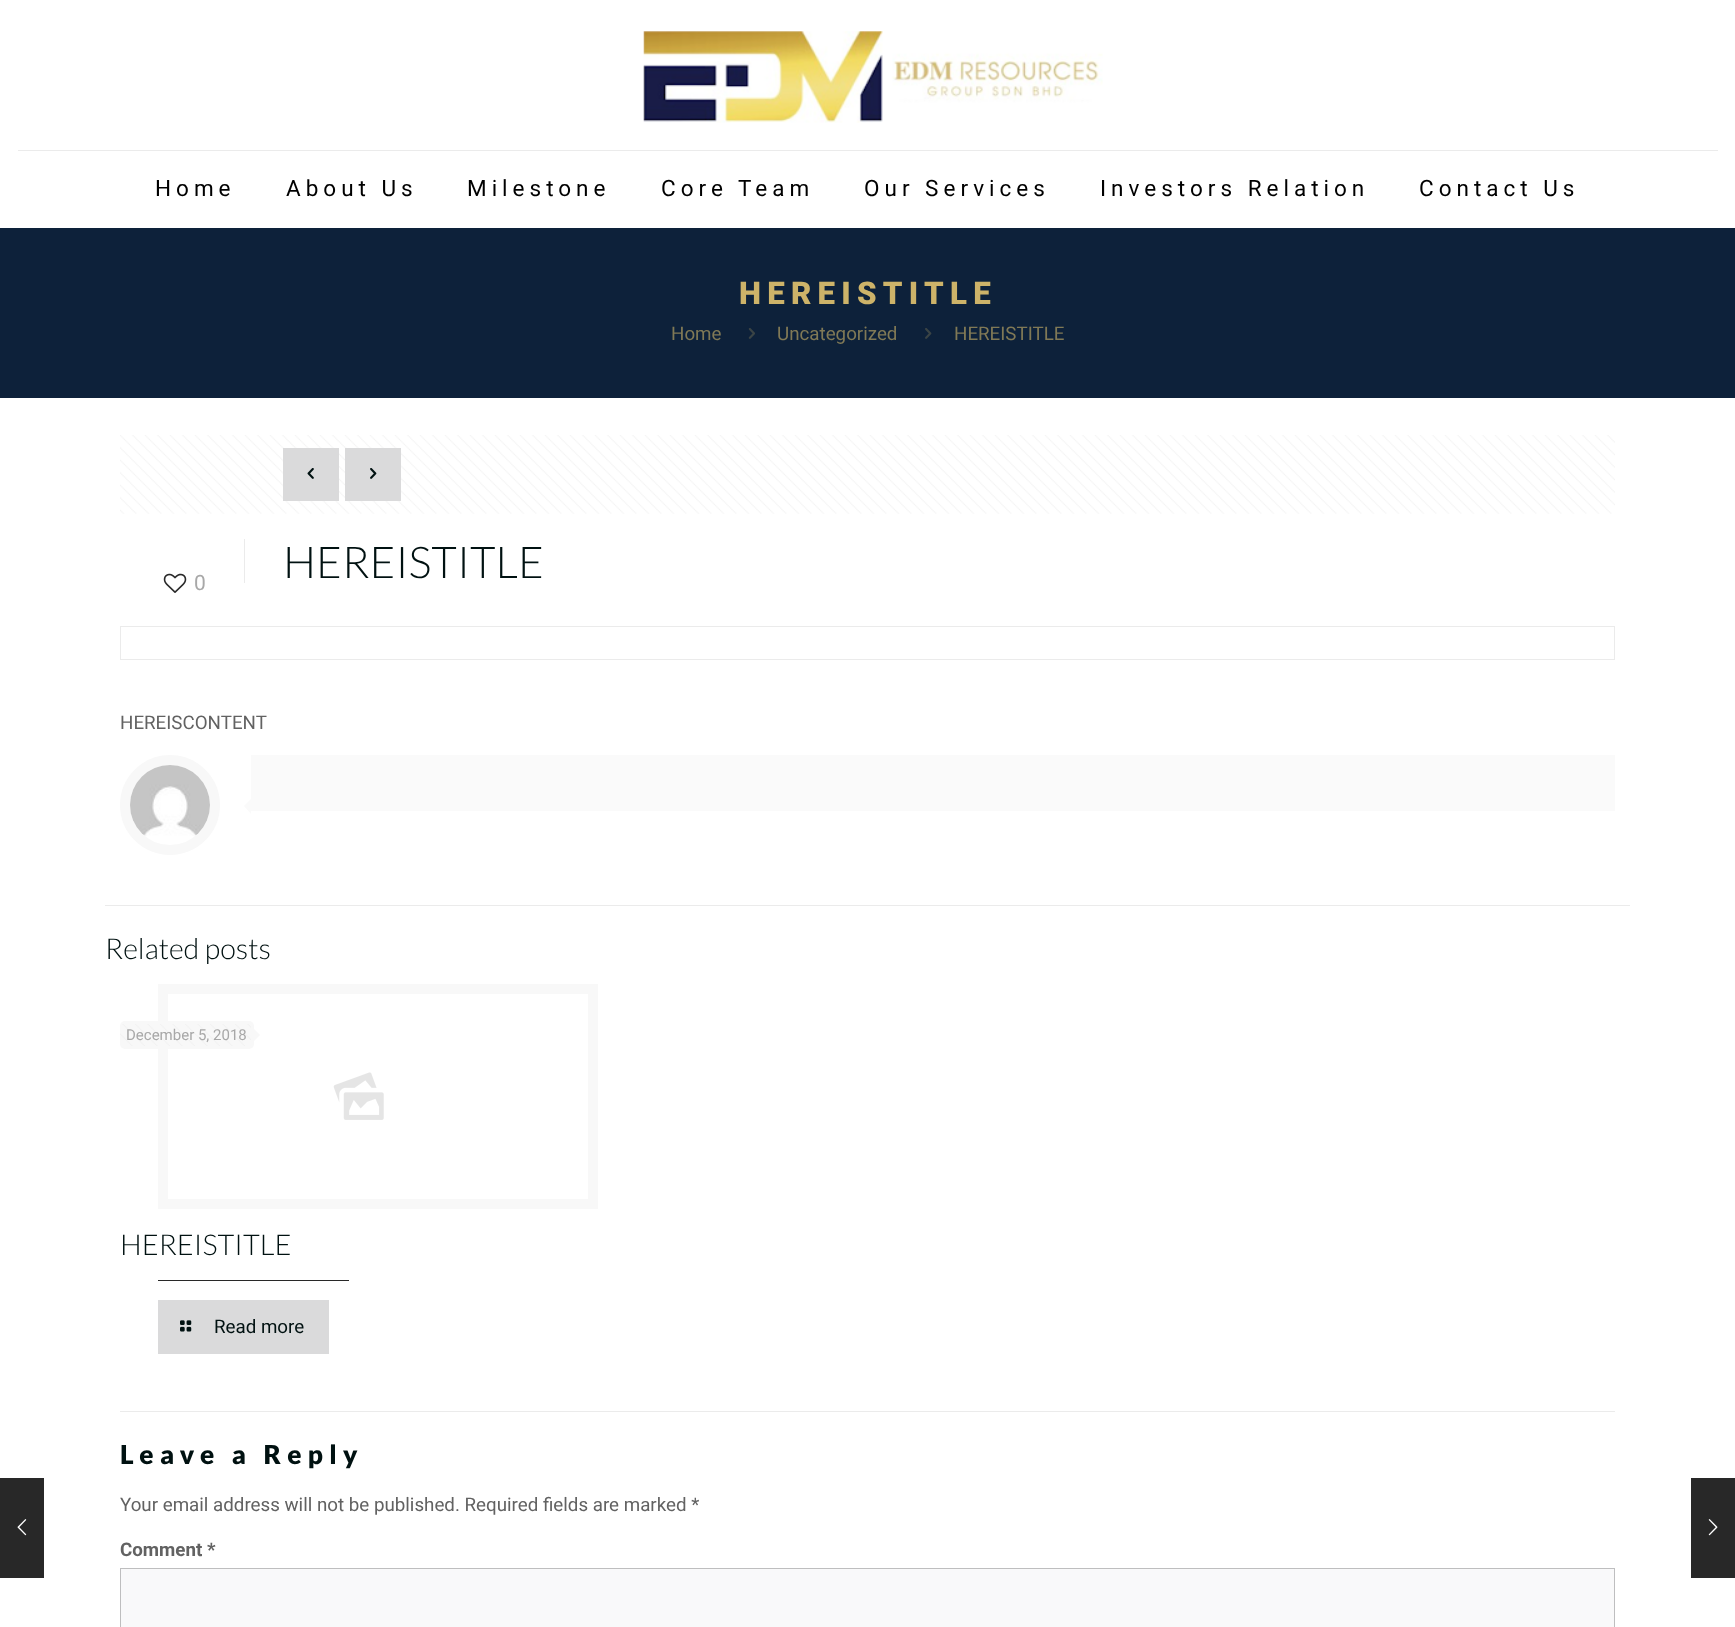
<svg xmlns="http://www.w3.org/2000/svg" xmlns:xlink="http://www.w3.org/1999/xlink" width="1735" height="1627" viewBox="0 0 1735 1627">
<style>
.cls-1{font:22.5px Roboto;letter-spacing:5px;fill:#000000}
.cls-2{font:900 31.25px Roboto;letter-spacing:6.25px;fill:#cdb369}
.cls-3{font:18.75px Roboto;fill:#807956}
.cls-4{font:300 43.75px Lato;fill:#001111}
.cls-5{font:21px Roboto;fill:#a8a8a8}
.cls-6{font:18.75px Roboto;fill:#626262}
.cls-7{font:300 28.75px Lato;fill:#001111}
.cls-8{font:15px Roboto;fill:#a8a8a8}
.cls-9{font:18.75px Roboto;fill:#001111}
.cls-10{font:900 26.25px Lato;letter-spacing:6.25px;fill:#001111}
.cls-11{font:bold 18.75px Roboto;fill:#626262}
</style>
<rect width="100%" height="100%" fill="#ffffff"/>
<rect fill="#282828" x="0" y="1478" width="44" height="100"/>
<image xlink:href="image0.png" x="17" y="1519" width="10" height="17"/>
<rect fill="#ebebeb" x="18" y="150" width="1700" height="1"/>
<image xlink:href="image1.png" x="643" y="31" width="460" height="92"/>
<rect fill="#0d213a" x="0" y="228" width="1735" height="170"/>
<image xlink:href="image2.png" x="748" y="328" width="7" height="11"/>
<image xlink:href="image3.png" x="925" y="328" width="7" height="11"/>
<image xlink:href="image4.png" x="120" y="435" width="1495" height="79"/>
<rect fill="#dadadb" x="283" y="448" width="56" height="53"/>
<image xlink:href="image5.png" x="307" y="468" width="7" height="11"/>
<rect fill="#dadadb" x="345" y="448" width="56" height="53"/>
<image xlink:href="image6.png" x="370" y="468" width="7" height="11"/>
<rect fill="#ebebeb" x="244" y="539" width="1" height="44"/>
<image xlink:href="image7.png" x="163" y="573" width="24" height="20"/>
<rect fill="none" stroke="#ebebeb" x="120.5" y="626.5" width="1494" height="33"/>
<circle fill="none" stroke="#f8f8f8" stroke-width="10" cx="170" cy="805" r="45"/>
<image xlink:href="image8.png" x="130" y="765" width="80" height="71"/>
<rect fill="#fafafa" x="251" y="755" width="1364" height="56"/>
<path fill="#fafafa" d="M251 799V814L244 806Z"/>
<rect fill="#ebebeb" x="105" y="905" width="1525" height="1"/>
<rect fill="none" stroke="#f8f8f8" stroke-width="10" x="163" y="989" width="430" height="215"/>
<image xlink:href="image9.png" x="333" y="1072" width="51" height="48"/>
<rect fill="#f8f8f8" x="120" y="1021" width="134" height="28" rx="5"/>
<image xlink:href="image10.png" x="120" y="1024" width="131" height="22"/>
<path fill="#f8f8f8" d="M254 1041V1029L260 1035Z"/>
<rect fill="#282828" x="158" y="1280" width="191" height="1"/>
<rect fill="#dadadb" x="158" y="1300" width="171" height="54"/>
<image xlink:href="image11.png" x="180" y="1320" width="12" height="12"/>
<rect fill="#ebebeb" x="120" y="1411" width="1495" height="1"/>
<rect fill="#f9f9fa" stroke="#bebebf" x="120.5" y="1568.5" width="1494" height="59"/>
<rect fill="#282828" x="1691" y="1478" width="44" height="100"/>
<image xlink:href="image12.png" x="1708" y="1519" width="10" height="17"/>
<text class="cls-1" x="155" y="196">Home</text>
<text class="cls-1" x="286" y="196">About Us</text>
<text class="cls-1" x="467" y="196">Milestone</text>
<text class="cls-1" x="661" y="196">Core Team</text>
<text class="cls-1" x="864" y="196">Our Services</text>
<text class="cls-1" x="1100" y="196">Investors Relation</text>
<text class="cls-1" x="1419" y="196">Contact Us</text>
<text class="cls-2" x="739" y="304">HEREISTITLE</text>
<text class="cls-3" x="671" y="340">Home</text>
<text class="cls-3" x="777" y="340">Uncategorized</text>
<text class="cls-3" x="954" y="340">HEREISTITLE</text>
<text class="cls-4" x="283" y="578">HEREISTITLE</text>
<text class="cls-5" x="194" y="590">0</text>
<text class="cls-6" x="120" y="729">HEREISCONTENT</text>
<text class="cls-7" x="105" y="959">Related posts</text>
<text class="cls-8" x="126" y="1040">December 5, 2018</text>
<text class="cls-7" x="120" y="1255">HEREISTITLE</text>
<text class="cls-9" x="214" y="1333">Read more</text>
<text class="cls-10" x="120" y="1464">Leave a Reply</text>
<text class="cls-6" x="120" y="1511">Your email address will not be published. Required fields are marked *</text>
<text class="cls-11" x="120" y="1556">Comment *</text>
</svg>
